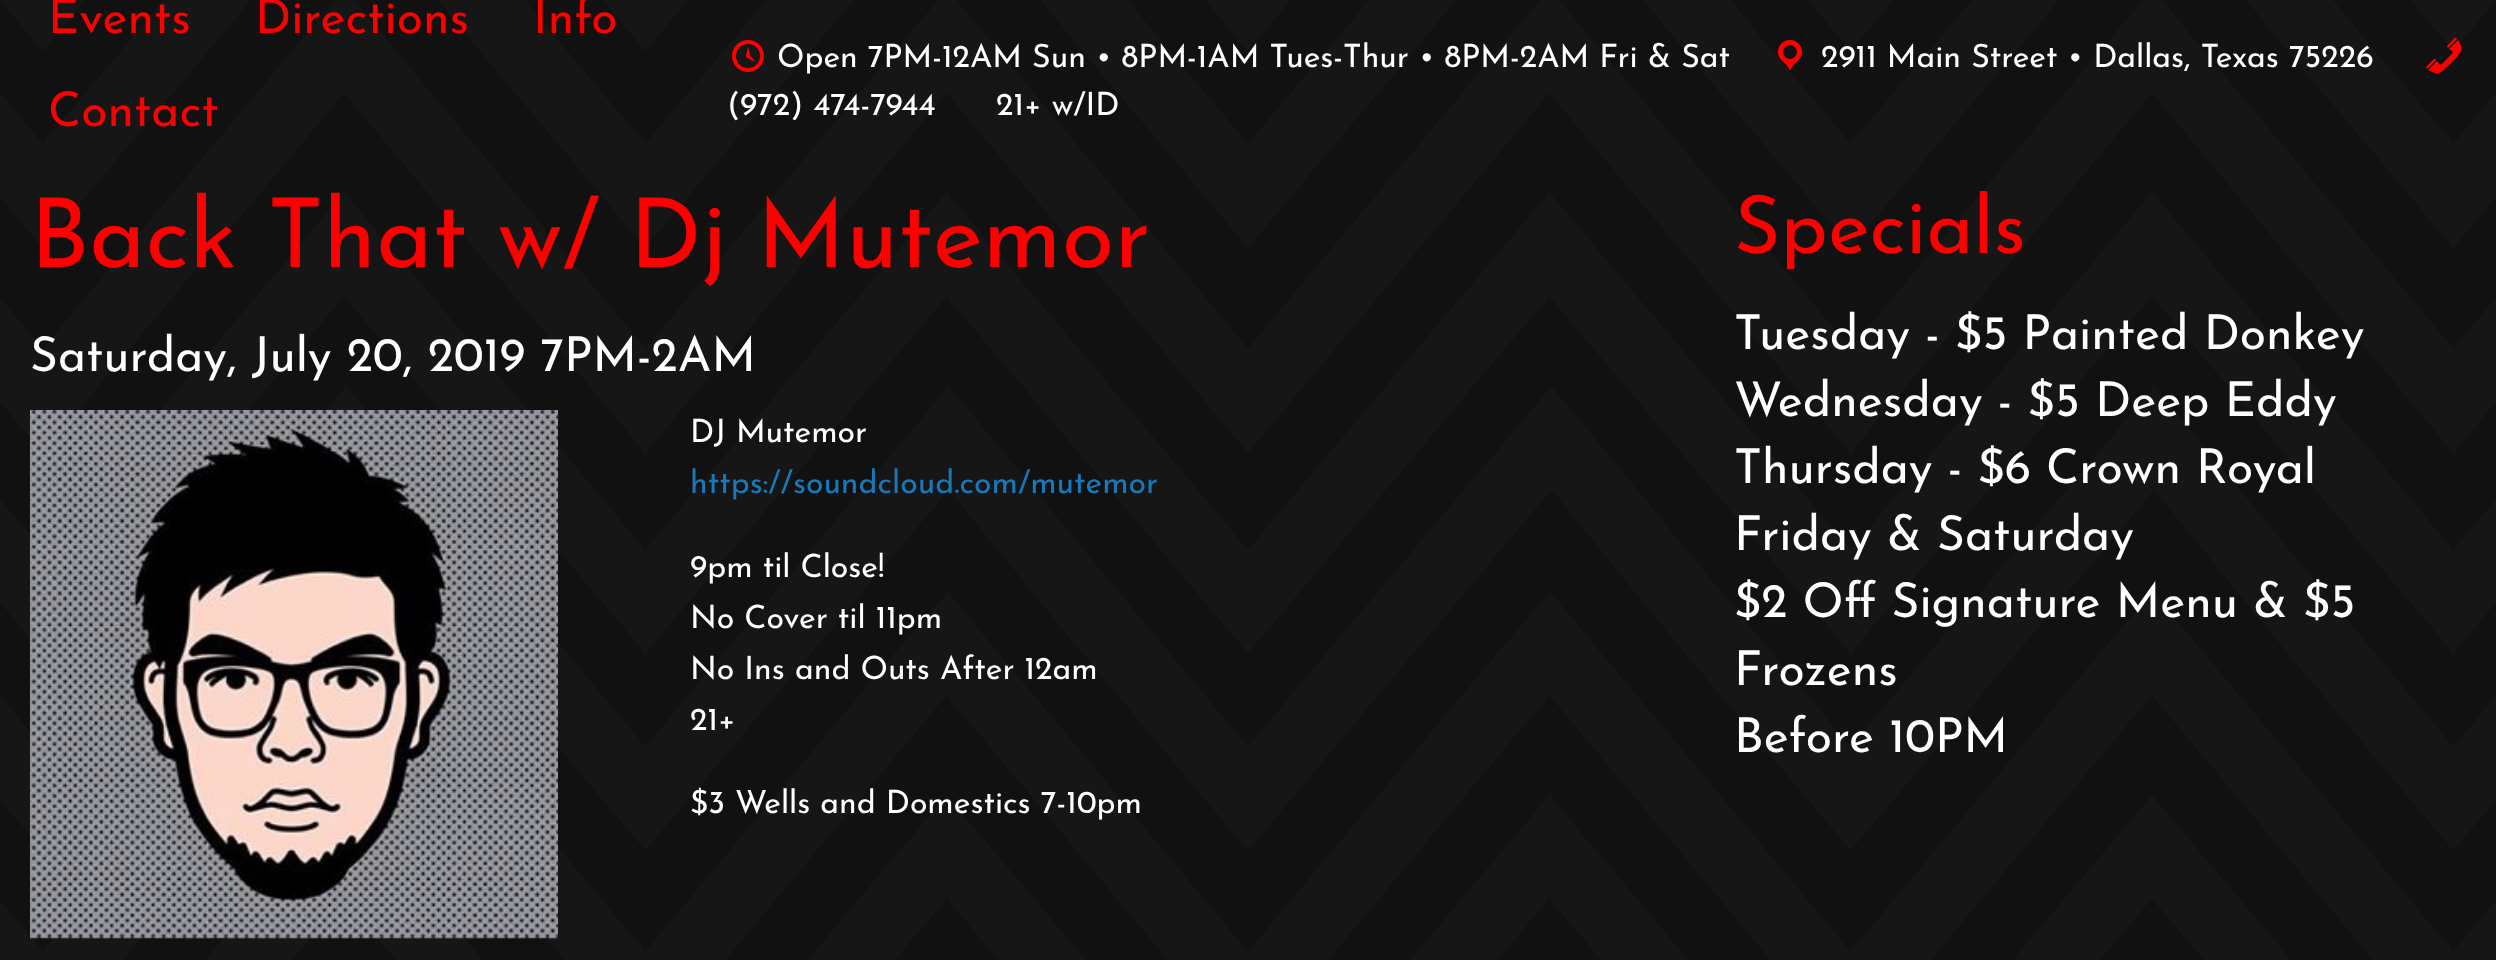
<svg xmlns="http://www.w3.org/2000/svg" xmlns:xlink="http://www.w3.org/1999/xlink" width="2496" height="960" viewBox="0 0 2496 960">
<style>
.cls-1{font:100 48px Josefin Sans;fill:#ff0000}
.cls-2{font:100 32px Josefin Sans;fill:#ffffff}
.cls-3{font:100 96px Josefin Sans;fill:#ff0000}
.cls-4{font:100 48px Josefin Sans;fill:#ffffff}
.cls-5{font:100 32px Josefin Sans;fill:#1779ba}
.cls-6{font:100 80px Josefin Sans;fill:#ff0000}
</style>
<rect width="100%" height="100%" fill="#ffffff"/>
<image xlink:href="image0.png" x="0" y="0" width="2496" height="960"/>
<image xlink:href="image1.png" x="732" y="40" width="32" height="32"/>
<image xlink:href="image2.png" x="1778" y="40" width="24" height="31"/>
<image xlink:href="image3.png" x="2426" y="37" width="36" height="37"/>
<image xlink:href="image4.png" x="30" y="410" width="528" height="529"/>
<text class="cls-1" x="48" y="33">Events</text>
<text class="cls-1" x="255" y="33">Directions</text>
<text class="cls-1" x="533" y="33">Info</text>
<text class="cls-1" x="48" y="126">Contact</text>
<text class="cls-2" x="777" y="67">Open 7PM-12AM Sun • 8PM-1AM Tues-Thur • 8PM-2AM Fri &amp; Sat</text>
<text class="cls-2" x="1821" y="67">2911 Main Street • Dallas, Texas 75226</text>
<text class="cls-2" x="727" y="115">(972) 474-7944</text>
<text class="cls-2" x="996" y="115">21+ w/ID</text>
<text class="cls-3" x="30" y="267">Back That w/ Dj Mutemor</text>
<text class="cls-4" x="30" y="371">Saturday, July 20, 2019 7PM-2AM</text>
<text class="cls-2" x="690" y="442">DJ Mutemor</text>
<text class="cls-5" x="690" y="493">https://soundcloud.com/mutemor</text>
<text class="cls-2"><tspan x="690" y="577">9pm til Close!</tspan><tspan x="690" y="628">No Cover til 11pm</tspan><tspan x="690" y="679">No Ins and Outs After 12am</tspan><tspan x="690" y="730">21+</tspan></text>
<text class="cls-2" x="690" y="813">$3 Wells and Domestics 7-10pm</text>
<text class="cls-6" x="1734" y="253">Specials</text>
<text class="cls-4"><tspan x="1734" y="349">Tuesday - $5 Painted Donkey</tspan><tspan x="1734" y="416">Wednesday - $5 Deep Eddy</tspan><tspan x="1734" y="483">Thursday - $6 Crown Royal</tspan><tspan x="1734" y="550">Friday &amp; Saturday</tspan><tspan x="1734" y="617">$2 Off Signature Menu &amp; $5</tspan><tspan x="1734" y="685">Frozens</tspan><tspan x="1734" y="752">Before 10PM</tspan></text>
</svg>
